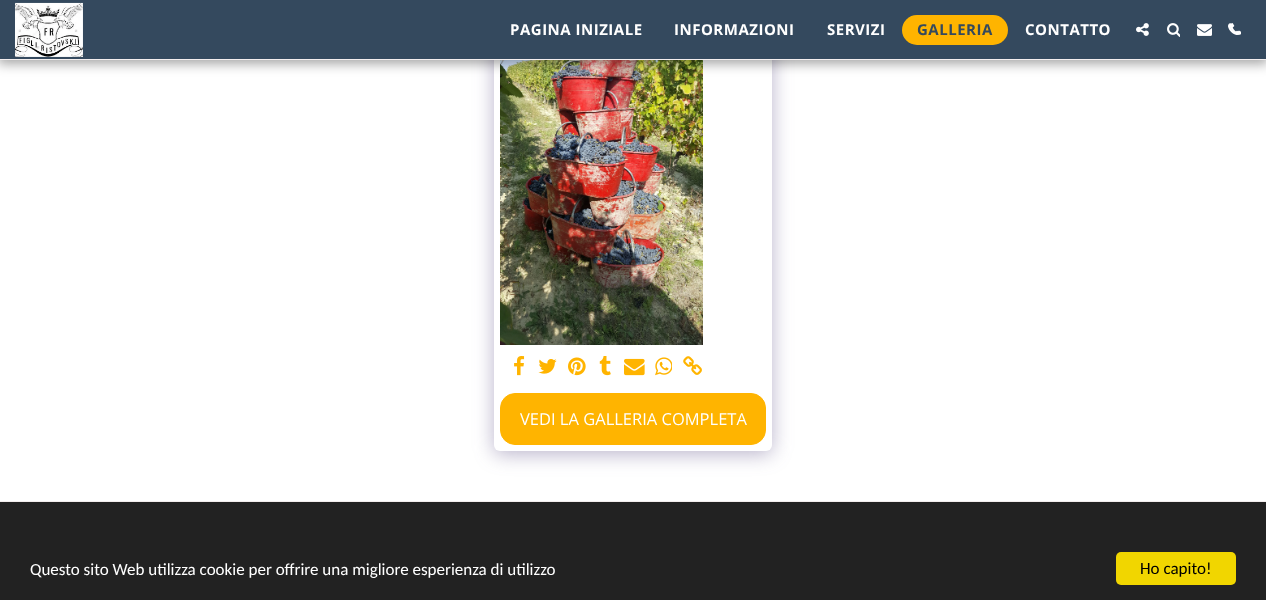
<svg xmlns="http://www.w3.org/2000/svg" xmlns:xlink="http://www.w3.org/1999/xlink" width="1266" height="600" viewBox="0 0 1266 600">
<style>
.cls-1{font:bold 15px Open Sans;letter-spacing:0.5px;fill:#ffffff}
.cls-2{font:bold 15px Open Sans;letter-spacing:0.5px;fill:#34495e}
.cls-3{font:16.5px Open Sans;fill:#ffffff}
.cls-4{font:17px Carlito;fill:#ffffff}
.cls-5{font:17px Carlito;fill:#000000}
</style>
<rect width="100%" height="100%" fill="#ffffff"/>
<rect fill="#4d3f7a" fill-opacity="0.4" filter="blur(10px)" x="494" y="-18" width="278" height="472" rx="6"/>
<rect fill="#ffffff" x="494" y="-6" width="278" height="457" rx="6"/>
<image xlink:href="image6.png" x="500" y="60" width="203" height="285"/>
<rect fill="#000000" fill-opacity="0.35" filter="blur(6px)" x="-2" y="0" width="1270" height="64"/>
<rect fill="#34495e" x="0" y="0" width="1266" height="59"/>
<rect fill="#f3eeee" x="0" y="59" width="1266" height="1"/>
<image xlink:href="image0.png" x="15" y="2" width="68" height="55"/>
<rect fill="#ffb400" x="902" y="15" width="106" height="30" rx="15"/>
<image xlink:href="image1.png" x="1136" y="23" width="13" height="13"/>
<image xlink:href="image2.png" x="1167" y="23" width="13" height="14"/>
<image xlink:href="image3.png" x="1197" y="24" width="15" height="12"/>
<image xlink:href="image4.png" x="1230" y="23" width="11" height="12"/>
<image xlink:href="image5.png" x="1228" y="23" width="11" height="12"/>
<image xlink:href="image7.png" x="514" y="356" width="11" height="20"/>
<image xlink:href="image8.png" x="538" y="359" width="19" height="15"/>
<image xlink:href="image9.png" x="568" y="357" width="18" height="19"/>
<image xlink:href="image10.png" x="599" y="356" width="12" height="20"/>
<image xlink:href="image11.png" x="624" y="358" width="21" height="18"/>
<image xlink:href="image12.png" x="655" y="357" width="17" height="19"/>
<image xlink:href="image13.png" x="683" y="356" width="19" height="19"/>
<rect fill="#ffb400" stroke="#ffb400" x="500.5" y="393.5" width="265" height="51" rx="14.5"/>
<rect fill="#222222" x="0" y="502" width="1266" height="98"/>
<rect fill="#f3eeee" x="0" y="501" width="1266" height="1"/>
<rect fill="#f1d600" x="1116" y="552" width="120" height="33" rx="5"/>
<text class="cls-1" x="510" y="35">PAGINA INIZIALE</text>
<text class="cls-1" x="674" y="35">INFORMAZIONI</text>
<text class="cls-1" x="827" y="35">SERVIZI</text>
<text class="cls-2" x="917" y="35">GALLERIA</text>
<text class="cls-1" x="1025" y="35">CONTATTO</text>
<text class="cls-3" x="520" y="425">VEDI LA GALLERIA COMPLETA</text>
<text class="cls-4" x="30" y="575">Questo sito Web utilizza cookie per offrire una migliore esperienza di utilizzo</text>
<text class="cls-5" x="1140" y="574">Ho capito!</text>
</svg>
